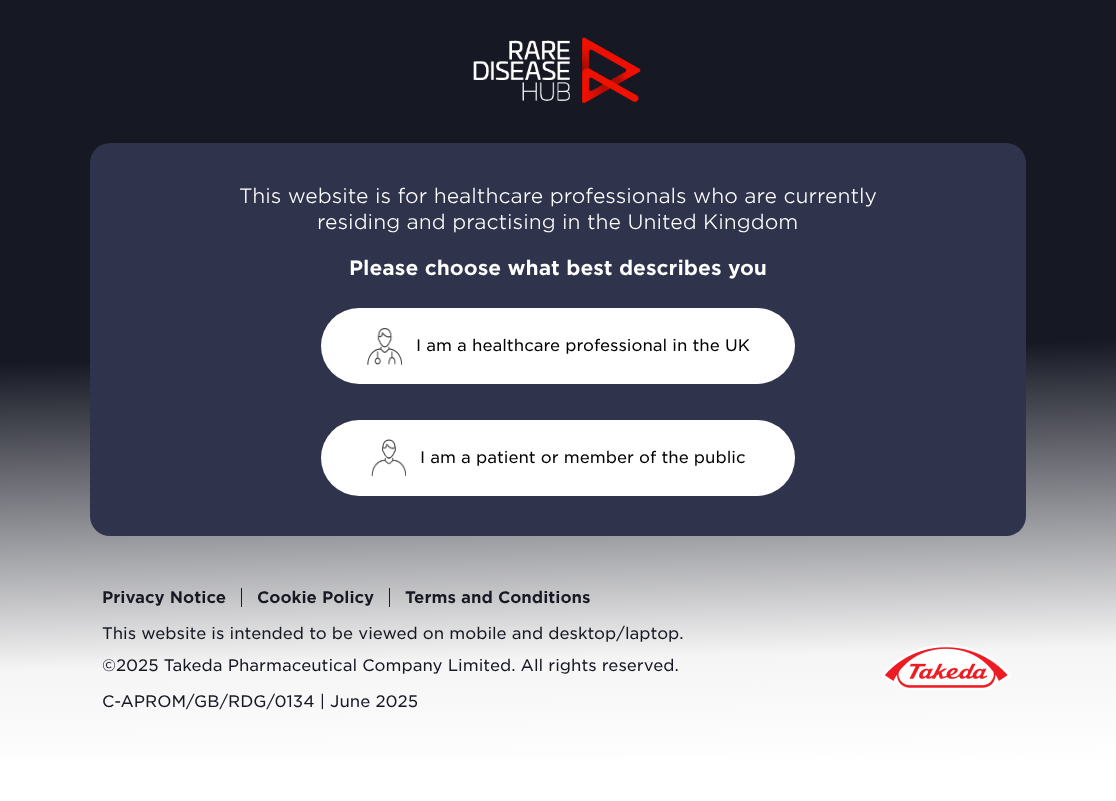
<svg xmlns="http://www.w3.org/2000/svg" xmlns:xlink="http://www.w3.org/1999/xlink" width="1116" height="801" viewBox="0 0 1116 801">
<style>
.cls-1{font:300 20px 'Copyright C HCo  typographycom';fill:#ffffff}
.cls-2{font:20px 'Copyright C HCo  typographycom';fill:#ffffff}
.cls-3{font:300 16px 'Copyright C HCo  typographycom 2';fill:#000000}
.cls-4{font:16px 'Copyright C HCo  typographycom';fill:#161824}
.cls-5{font:300 16px 'Copyright C HCo  typographycom 2';fill:#161824}
</style>
<defs>
<linearGradient id="g1" gradientUnits="userSpaceOnUse" x1="550" y1="-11" x2="566" y2="777"><stop offset="0.46" stop-color="#161824"/><stop offset="0.85" stop-color="#f5f5f5"/><stop offset="1" stop-color="#ffffff"/></linearGradient>
</defs>
<rect width="100%" height="100%" fill="#ffffff"/>
<rect fill="url(#g1)" x="0" y="0" width="1116" height="759"/>
<image xlink:href="image0.png" x="473" y="37" width="168" height="67"/>
<rect fill="#2f334c" x="90" y="143" width="936" height="393" rx="20"/>
<rect fill="#ffffff" x="321" y="308" width="474" height="76" rx="38"/>
<image xlink:href="image1.png" x="367" y="328" width="35" height="37"/>
<rect fill="#ffffff" x="321" y="420" width="474" height="76" rx="38"/>
<image xlink:href="image2.png" x="371" y="439" width="35" height="37"/>
<rect fill="#161824" x="241" y="588" width="1" height="19"/>
<rect fill="#161824" x="389" y="588" width="1" height="19"/>
<image xlink:href="image3.png" x="881" y="644" width="130" height="46"/>
<text class="cls-1" x="239" y="203">This website is for healthcare professionals who are currently</text>
<text class="cls-1" x="317" y="229">residing and practising in the United Kingdom</text>
<text class="cls-2" x="349" y="275">Please choose what best describes you</text>
<text class="cls-3" x="416" y="351">I am a healthcare professional in the UK</text>
<text class="cls-3" x="420" y="463">I am a patient or member of the public</text>
<text class="cls-4" x="102" y="603">Privacy Notice</text>
<text class="cls-4" x="257" y="603">Cookie Policy</text>
<text class="cls-4" x="405" y="603">Terms and Conditions</text>
<text class="cls-5" x="102" y="639">This website is intended to be viewed on mobile and desktop/laptop.</text>
<text class="cls-5" x="102" y="671">©2025 Takeda Pharmaceutical Company Limited. All rights reserved.</text>
<text class="cls-5" x="102" y="707">C-APROM/GB/RDG/0134 | June 2025</text>
</svg>
